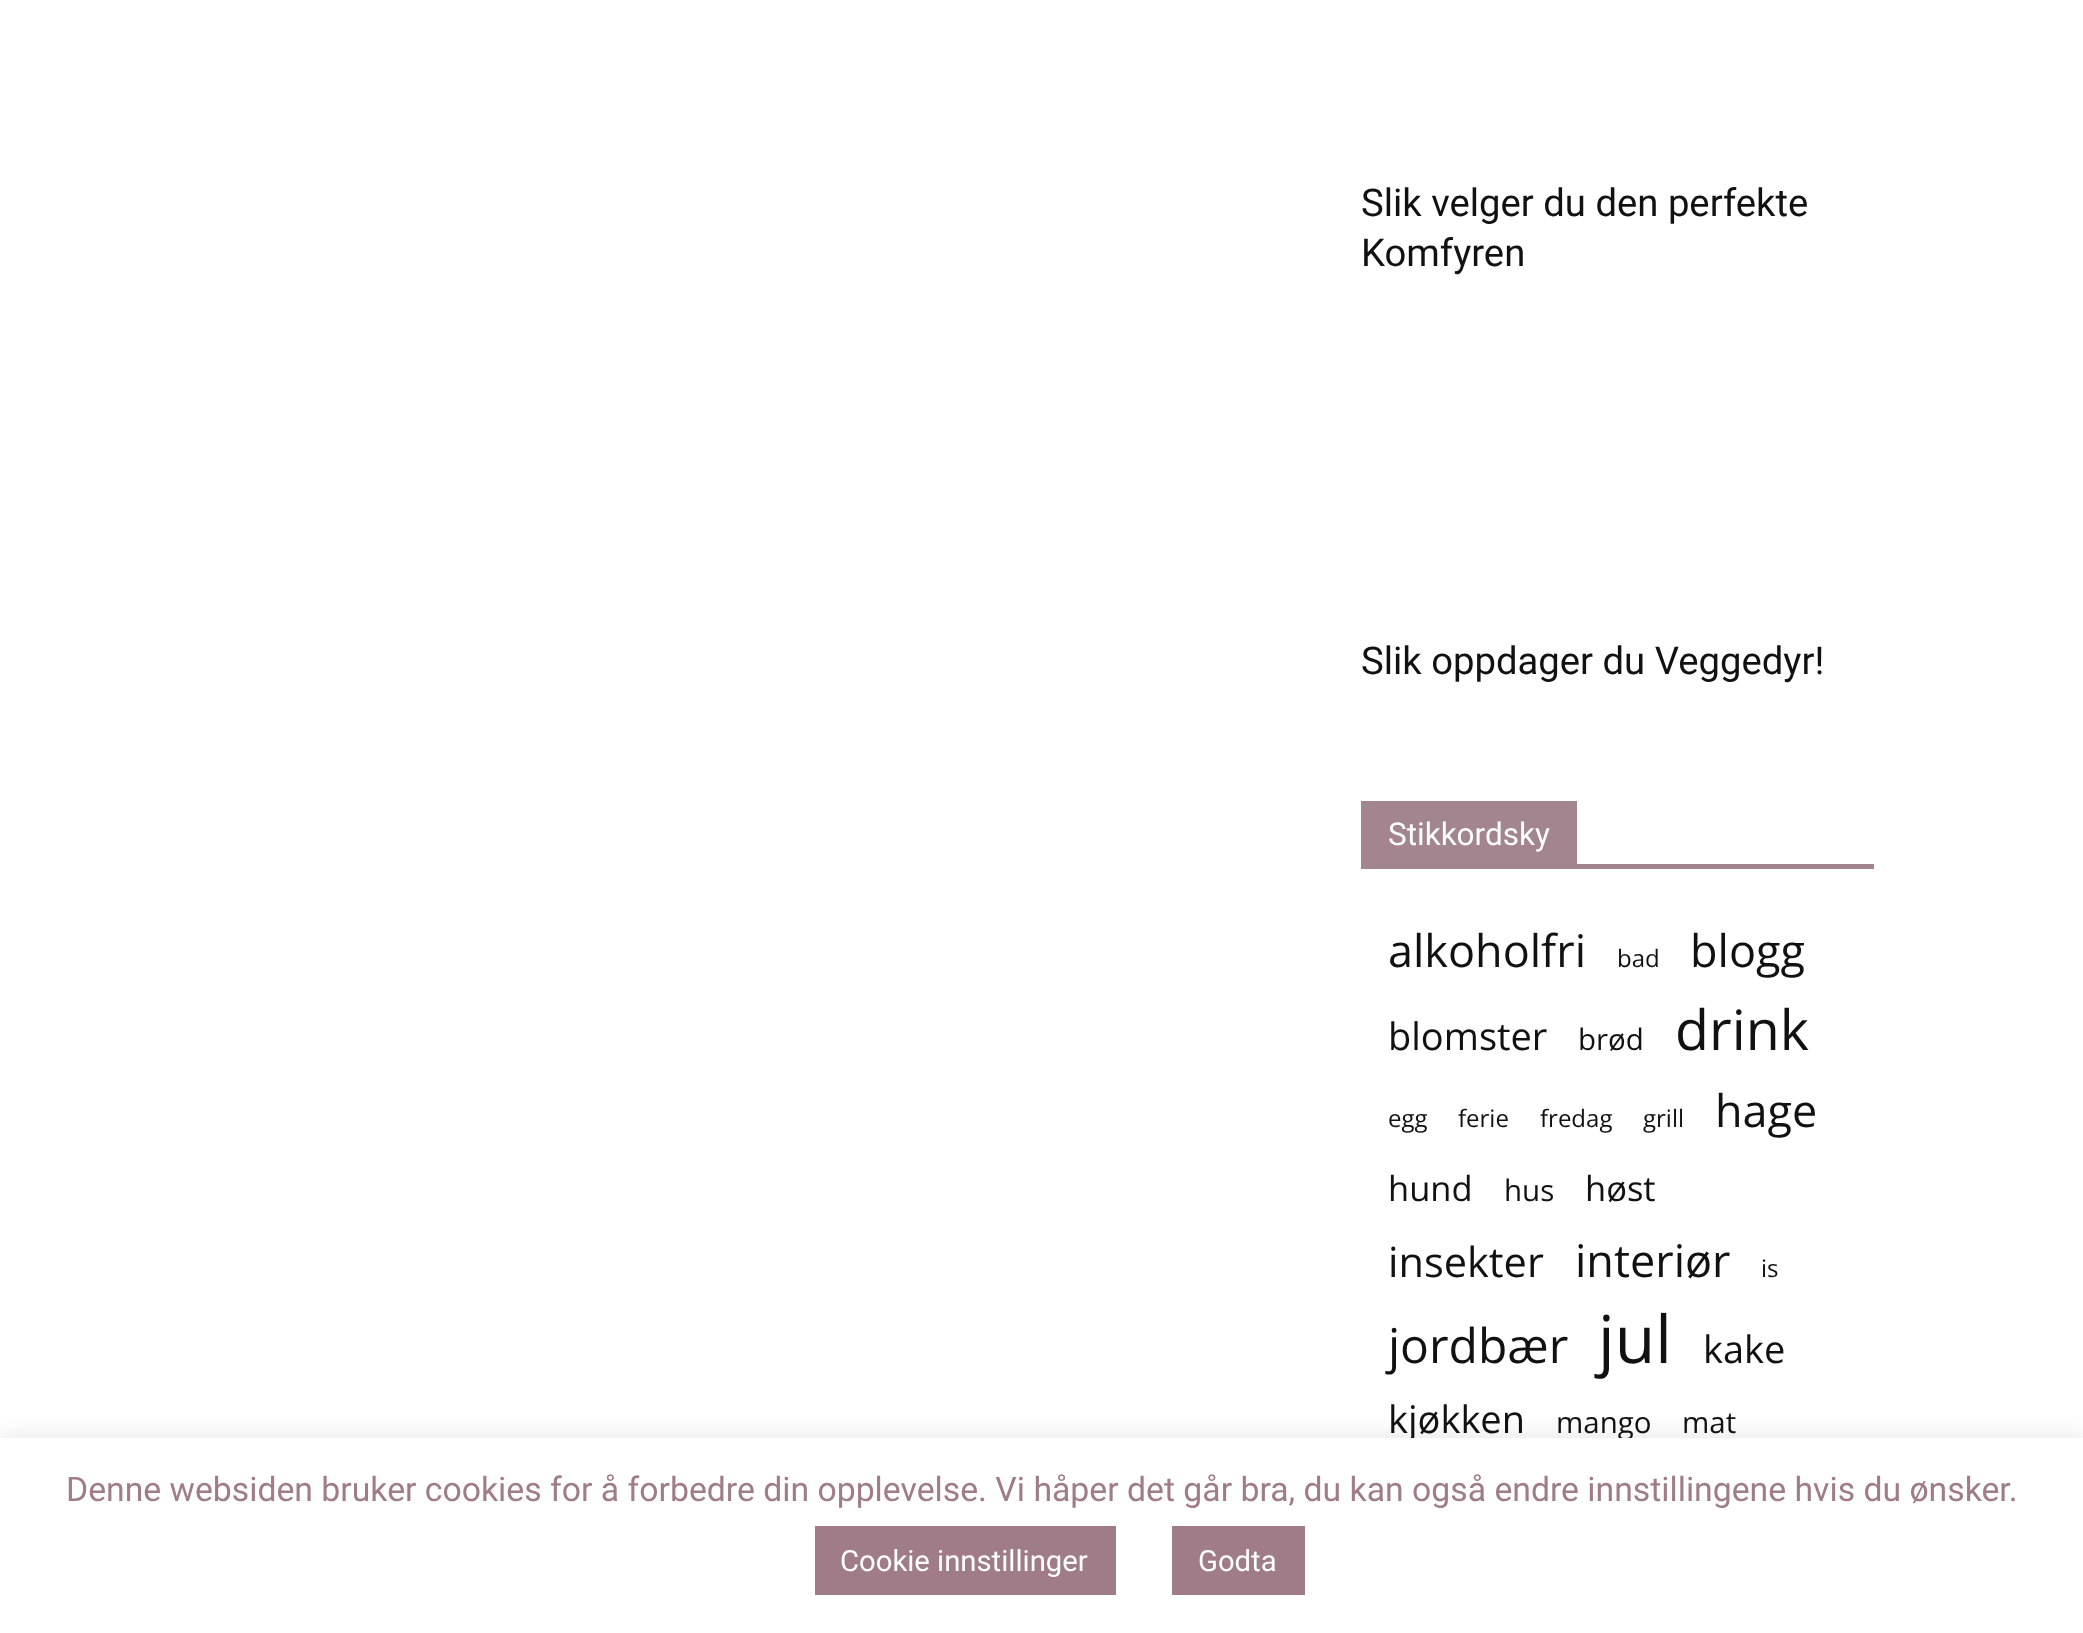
<svg xmlns="http://www.w3.org/2000/svg" xmlns:xlink="http://www.w3.org/1999/xlink" width="2083" height="1633" viewBox="0 0 2083 1633">
<style>
.cls-1{font:38.25px Roboto;fill:#111111}
.cls-2{font:31.5px Roboto;fill:#ffffff}
.cls-3{font:45px Open Sans;fill:#111111}
.cls-4{font:24px Open Sans;fill:#111111}
.cls-5{font:38px Open Sans;fill:#111111}
.cls-6{font:29.5px Open Sans;fill:#111111}
.cls-7{font:55.5px Open Sans;fill:#111111}
.cls-8{font:34.5px Open Sans;fill:#111111}
.cls-9{font:41.5px Open Sans;fill:#111111}
.cls-10{font:48px Open Sans;fill:#111111}
.cls-11{font:66px Open Sans;fill:#111111}
.cls-12{font:33.75px Roboto;fill:#9f7c87}
.cls-13{font:29.25px Roboto;fill:#ffffff}
</style>
<rect width="100%" height="100%" fill="#ffffff"/>
<rect fill="#a2858f" x="1361" y="864" width="513" height="5"/>
<rect fill="#a2858f" x="1361" y="801" width="216" height="63"/>
<rect fill="#acabab" fill-opacity="0.3" filter="blur(11px)" x="0" y="1436" width="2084" height="195"/>
<text class="cls-1"><tspan x="1361" y="216">Slik velger du den perfekte</tspan><tspan x="1361" y="266">Komfyren</tspan></text>
<text class="cls-1" x="1361" y="674">Slik oppdager du Veggedyr!</text>
<text class="cls-2" x="1388" y="845">Stikkordsky</text>
<text class="cls-3" x="1388" y="967">alkoholfri</text>
<text class="cls-4" x="1617" y="967">bad</text>
<text class="cls-3" x="1690" y="967">blogg</text>
<text class="cls-5" x="1388" y="1050">blomster</text>
<text class="cls-6" x="1578" y="1050">brød</text>
<text class="cls-7" x="1675" y="1050">drink</text>
<text class="cls-4" x="1388" y="1127">egg</text>
<text class="cls-4" x="1458" y="1127">ferie</text>
<text class="cls-4" x="1540" y="1127">fredag</text>
<text class="cls-4" x="1643" y="1127">grill</text>
<text class="cls-3" x="1715" y="1127">hage</text>
<text class="cls-8" x="1388" y="1201">hund</text>
<text class="cls-6" x="1504" y="1201">hus</text>
<text class="cls-8" x="1585" y="1201">høst</text>
<text class="cls-9" x="1388" y="1277">insekter</text>
<text class="cls-3" x="1575" y="1277">interiør</text>
<text class="cls-4" x="1761" y="1277">is</text>
<text class="cls-10" x="1388" y="1363">jordbær</text>
<text class="cls-11" x="1598" y="1363">jul</text>
<text class="cls-5" x="1703" y="1363">kake</text>
<text class="cls-5" x="1388" y="1433">kjøkken</text>
<text class="cls-6" x="1556" y="1433">mango</text>
<text class="cls-6" x="1682" y="1433">mat</text>
<rect fill="#ffffff" x="0" y="1438" width="2083" height="195"/>
<text class="cls-12" x="66" y="1501">Denne websiden bruker cookies for å forbedre din opplevelse. Vi håper det går bra, du kan også endre innstillingene hvis du ønsker.</text>
<rect fill="#9f7c87" x="815" y="1526" width="301" height="69"/>
<text class="cls-13" x="840" y="1571">Cookie innstillinger</text>
<rect fill="#9f7c87" x="1172" y="1526" width="133" height="69"/>
<text class="cls-13" x="1198" y="1571">Godta</text>
</svg>
